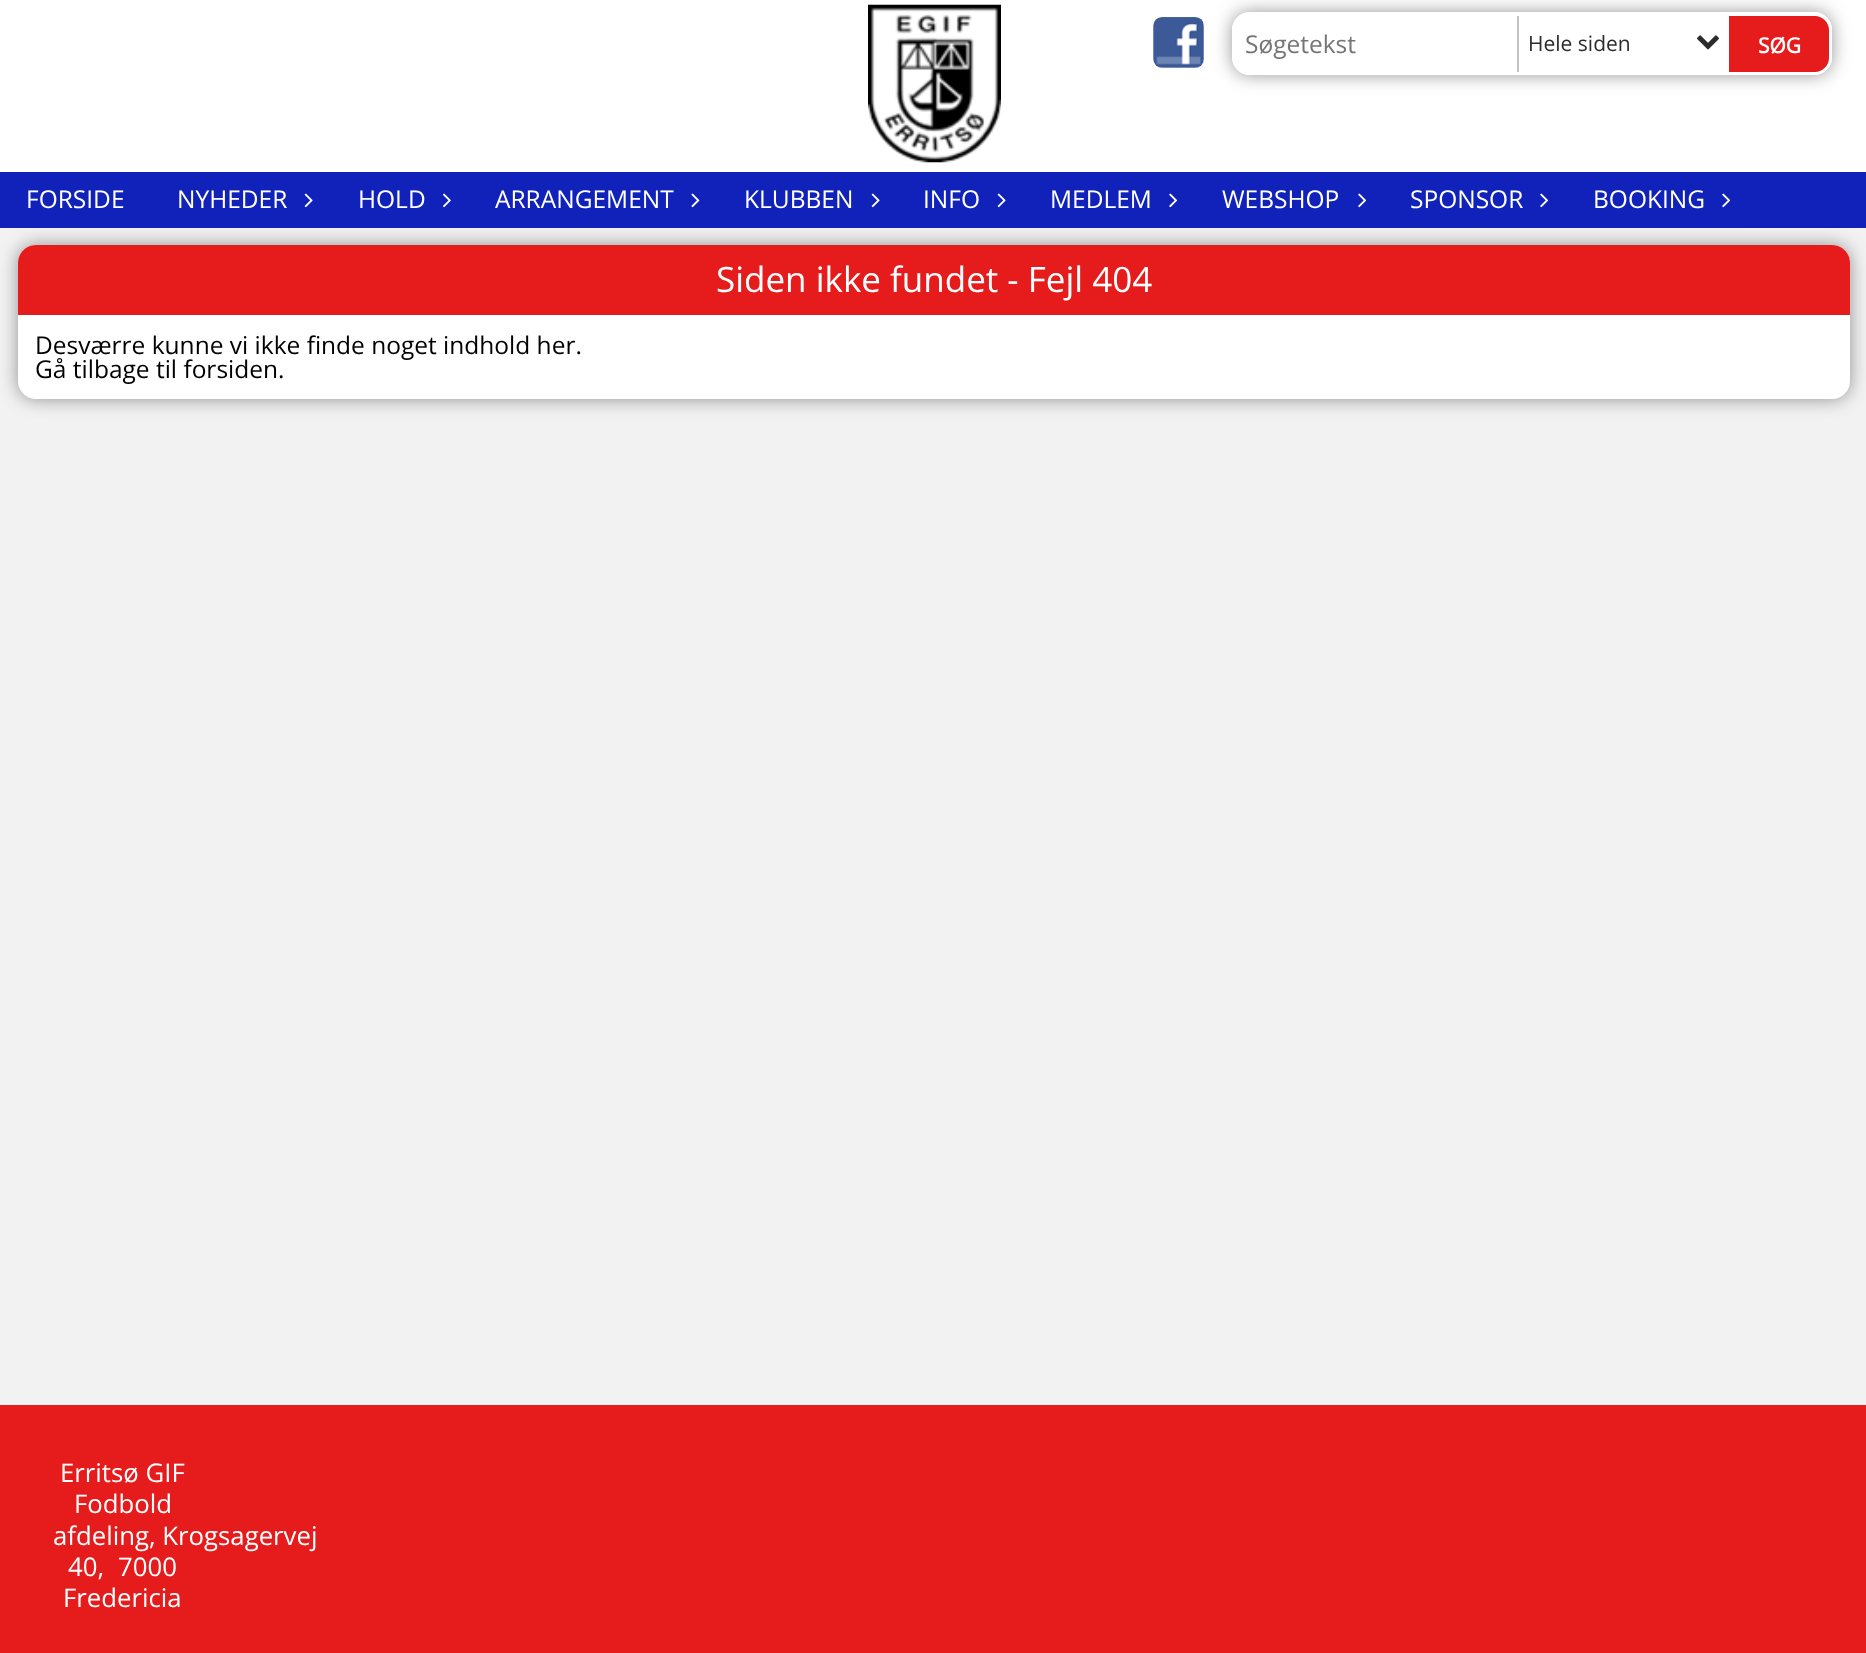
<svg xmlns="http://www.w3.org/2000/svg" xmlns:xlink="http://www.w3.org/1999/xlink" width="1866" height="1653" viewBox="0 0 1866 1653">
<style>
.cls-1{font:24.5px Open Sans;fill:#757575}
.cls-2{font:21px Open Sans;fill:#2c2c2c}
.cls-3{font:bold 21px Open Sans;fill:#ffffff}
.cls-4{font:24.5px Open Sans;fill:#ffffff}
.cls-5{font:35px Open Sans;fill:#ffffff}
.cls-6{font:24.5px Open Sans;fill:#000000}
.cls-7{font:25.75px Open Sans;fill:#ffffff}
</style>
<defs>
<clipPath id="clip1"><path d="M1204 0H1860V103H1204ZM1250 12H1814C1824 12 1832 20 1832 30V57C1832 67 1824 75 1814 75H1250C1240 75 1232 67 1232 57V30C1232 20 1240 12 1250 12Z" clip-rule="evenodd"/></clipPath>
</defs>
<rect width="100%" height="100%" fill="#f2f2f2"/>
<rect fill="#ffffff" x="0" y="0" width="1866" height="172"/>
<image xlink:href="image0.png" x="868" y="4" width="133" height="159"/>
<image xlink:href="image1.png" x="1153" y="17" width="51" height="51"/>
<g clip-path="url(#clip1)">
<rect fill="#303030" fill-opacity="0.5" filter="blur(9px)" x="1232" y="12" width="600" height="63" rx="18"/>
</g>
<rect fill="none" stroke="#ffffff" stroke-width="4" x="1234" y="14" width="596" height="59" rx="16"/>
<rect fill="#c2c2c2" x="1517" y="16" width="2" height="56"/>
<image xlink:href="image2.png" x="1697" y="35" width="22" height="15"/>
<path fill="#e61c1c" d="M1729 16H1815C1822.5 16 1829 22.5 1829 30V58C1829 65.5 1822.5 72 1815 72H1729Z"/>
<rect fill="#1122ba" x="1748" y="172" width="118" height="56"/>
<rect fill="#303030" fill-opacity="0.5" filter="blur(9px)" x="18" y="245" width="1832" height="154" rx="18"/>
<rect fill="#1122ba" x="0" y="172" width="1748" height="56"/>
<image xlink:href="image3.png" x="304" y="193" width="9" height="15"/>
<image xlink:href="image4.png" x="443" y="193" width="8" height="15"/>
<image xlink:href="image5.png" x="691" y="193" width="9" height="15"/>
<image xlink:href="image3.png" x="871" y="193" width="9" height="15"/>
<image xlink:href="image3.png" x="997" y="193" width="9" height="15"/>
<image xlink:href="image6.png" x="1169" y="193" width="9" height="15"/>
<image xlink:href="image6.png" x="1358" y="193" width="9" height="15"/>
<image xlink:href="image6.png" x="1540" y="193" width="9" height="15"/>
<image xlink:href="image6.png" x="1722" y="193" width="9" height="15"/>
<rect fill="#ffffff" x="18" y="245" width="1832" height="154" rx="18"/>
<path fill="#e61c1c" d="M36 245H1832C1842 245 1850 253 1850 263V315H18V263C18 253 26 245 36 245Z"/>
<rect fill="#e61c1c" x="0" y="1405" width="1866" height="248"/>
<text class="cls-1" x="1245" y="53">Søgetekst</text>
<text class="cls-2" x="1528" y="51">Hele siden</text>
<text class="cls-3" x="1758" y="53">SØG</text>
<text class="cls-4" x="26" y="208">FORSIDE</text>
<text class="cls-4" x="177" y="208">NYHEDER</text>
<text class="cls-4" x="358" y="208">HOLD</text>
<text class="cls-4" x="495" y="208">ARRANGEMENT</text>
<text class="cls-4" x="744" y="208">KLUBBEN</text>
<text class="cls-4" x="923" y="208">INFO</text>
<text class="cls-4" x="1050" y="208">MEDLEM</text>
<text class="cls-4" x="1222" y="208">WEBSHOP</text>
<text class="cls-4" x="1410" y="208">SPONSOR</text>
<text class="cls-4" x="1593" y="208">BOOKING</text>
<text class="cls-5" x="716" y="292">Siden ikke fundet - Fejl 404</text>
<text class="cls-6"><tspan x="35" y="354">Desværre kunne vi ikke finde noget indhold her.</tspan><tspan x="35" y="378">Gå tilbage til forsiden</tspan></text>
<text class="cls-6" x="278" y="378">.</text>
<text class="cls-7" x="60" y="1482">Erritsø GIF</text>
<text class="cls-7" x="74" y="1513">Fodbold</text>
<text class="cls-7" x="53" y="1545">afdeling, Krogsagervej</text>
<text class="cls-7" x="68" y="1576">40,</text>
<text class="cls-7" x="118" y="1576">7000</text>
<text class="cls-7" x="63" y="1607">Fredericia</text>
</svg>
